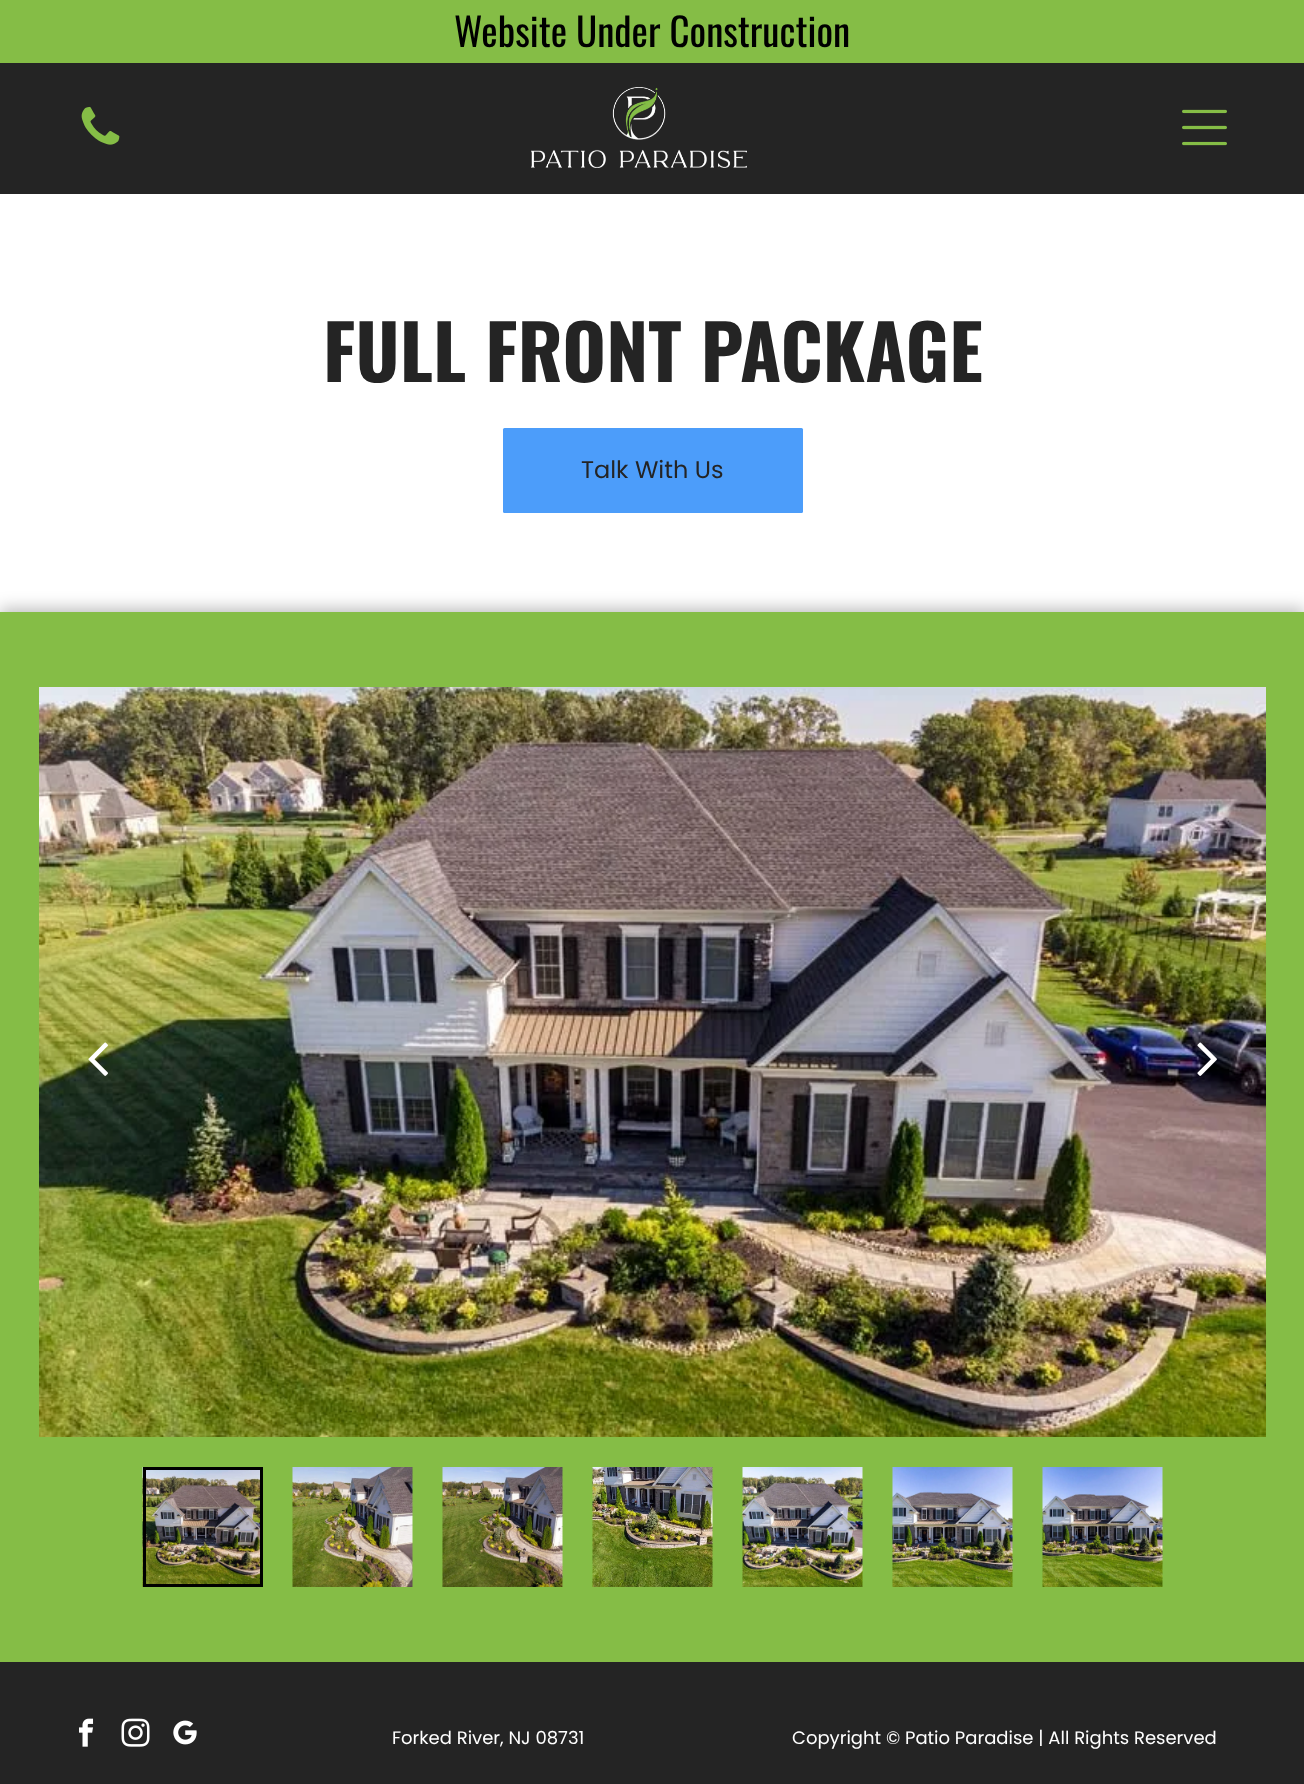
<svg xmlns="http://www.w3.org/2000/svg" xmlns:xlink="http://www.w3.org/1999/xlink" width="1304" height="1784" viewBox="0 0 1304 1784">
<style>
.cls-1{font:39px Oswald;fill:#000000}
.cls-2{font:bold 75px Oswald;fill:#242424}
.cls-3{font:24px Poppins;fill:#242424}
.cls-4{font:18px Poppins;fill:#ffffff}
</style>
<rect width="100%" height="100%" fill="#ffffff"/>
<rect fill="#242424" x="0" y="63" width="1304" height="131"/>
<rect fill="#85bd46" x="0" y="0" width="1304" height="63"/>
<image xlink:href="image0.png" x="81" y="106" width="39" height="39"/>
<image xlink:href="image1.png" x="531" y="87" width="216" height="81"/>
<image xlink:href="image2.png" x="1182" y="109" width="45" height="37"/>
<rect fill="#4c9dfa" x="503" y="428" width="300" height="85" rx="1.5"/>
<rect fill="#000000" fill-opacity="0.25" filter="blur(8px)" x="0" y="608" width="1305" height="1050"/>
<rect fill="#85bd46" x="0" y="612" width="1304" height="1050"/>
<image xlink:href="image3.png" x="39" y="687" width="1227" height="750"/>
<image xlink:href="image4.png" x="88" y="1042" width="20" height="34"/>
<image xlink:href="image5.png" x="1197" y="1042" width="20" height="34"/>
<image xlink:href="image6.png" x="142" y="1467" width="118" height="120"/>
<rect fill="none" stroke="#000000" stroke-width="3" x="144.5" y="1468.5" width="117" height="117"/>
<image xlink:href="image7.png" x="292" y="1467" width="121" height="120"/>
<image xlink:href="image8.png" x="442" y="1467" width="121" height="120"/>
<image xlink:href="image9.png" x="592" y="1467" width="121" height="120"/>
<image xlink:href="image10.png" x="742" y="1467" width="121" height="120"/>
<image xlink:href="image11.png" x="892" y="1467" width="121" height="120"/>
<image xlink:href="image12.png" x="1042" y="1467" width="121" height="120"/>
<rect fill="#242424" x="0" y="1662" width="1304" height="122"/>
<image xlink:href="image13.png" x="79" y="1718" width="15" height="29"/>
<image xlink:href="image14.png" x="121" y="1718" width="29" height="29"/>
<image xlink:href="image15.png" x="173" y="1720" width="24" height="25"/>
<text class="cls-1" x="454" y="47">Website Under Construction</text>
<text class="cls-2" x="323" y="382">FULL FRONT PACKAGE</text>
<text class="cls-3" x="581" y="478">Talk With Us</text>
<text class="cls-4" x="392" y="1744">Forked River, NJ 08731</text>
<text class="cls-4" x="792" y="1744">Copyright © Patio Paradise | All Rights Reserved</text>
</svg>
